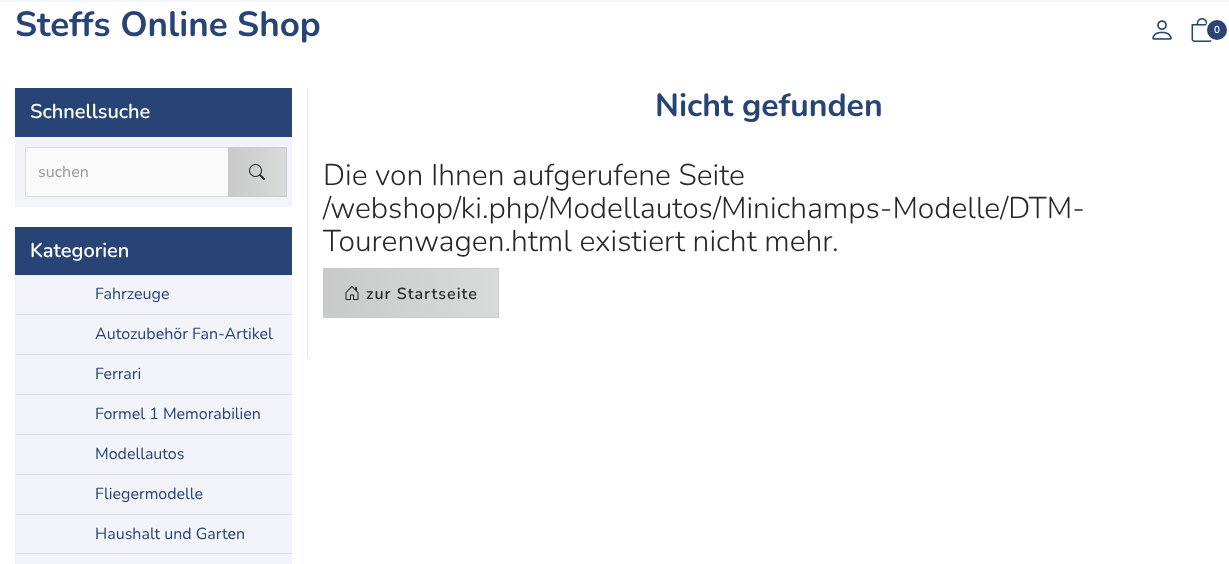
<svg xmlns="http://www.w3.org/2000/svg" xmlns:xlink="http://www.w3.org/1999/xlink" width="1229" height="564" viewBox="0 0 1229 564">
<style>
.cls-1{font:bold 35px Nunito;fill:#284476}
.cls-2{font:600 10px Nunito;fill:#ffffff}
.cls-3{font:600 20px Nunito;fill:#ffffff}
.cls-4{font:16px Nunito;fill:#999999}
.cls-5{font:16px Nunito;fill:#284476}
.cls-6{font:bold 32px Nunito;fill:#284476}
.cls-7{font:300 30px Nunito;fill:#282828}
.cls-8{font:600 16px Nunito;letter-spacing:1px;fill:#282828}
</style>
<defs>
<linearGradient id="g1" gradientUnits="userSpaceOnUse" x1="228" y1="172" x2="399" y2="172"><stop offset="0.01" stop-color="#c9caca"/><stop offset="0.42" stop-color="#dddede"/><stop offset="1" stop-color="#c9caca"/></linearGradient>
<linearGradient id="g2" gradientUnits="userSpaceOnUse" x1="323" y1="293" x2="845" y2="293"><stop offset="0.01" stop-color="#c9caca"/><stop offset="0.42" stop-color="#dddede"/><stop offset="1" stop-color="#c9caca"/></linearGradient>
</defs>
<rect width="100%" height="100%" fill="#ffffff"/>
<rect fill="#f2f4f9" x="0" y="0" width="1229" height="2"/>
<image xlink:href="image0.png" x="1152" y="20" width="20" height="20"/>
<image xlink:href="image1.png" x="1191" y="18" width="22" height="24"/>
<circle fill="#2a4477" stroke="#ffffff" stroke-width="2" cx="1217" cy="30" r="11"/>
<rect fill="#284476" x="15" y="88" width="277" height="49"/>
<rect fill="#f2f4f9" x="15" y="137" width="277" height="70"/>
<rect fill="#fafafa" stroke="#dddddd" x="25.5" y="147.5" width="203" height="49"/>
<rect fill="url(#g1)" x="229" y="148" width="57" height="48"/>
<rect fill="none" stroke="#c9caca" x="228.5" y="147.5" width="58" height="49"/>
<image xlink:href="image2.png" x="249" y="164" width="16" height="16"/>
<rect fill="#284476" x="15" y="227" width="277" height="48"/>
<rect fill="#f2f4f9" x="15" y="275" width="277" height="289"/>
<rect fill="#dadce0" x="15" y="314" width="277" height="1"/>
<rect fill="#dadce0" x="15" y="354" width="277" height="1"/>
<rect fill="#dadce0" x="15" y="394" width="277" height="1"/>
<rect fill="#dadce0" x="15" y="434" width="277" height="1"/>
<rect fill="#dadce0" x="15" y="474" width="277" height="1"/>
<rect fill="#dadce0" x="15" y="514" width="277" height="1"/>
<rect fill="#dadce0" x="15" y="553" width="277" height="1"/>
<rect fill="#eaeaea" x="307" y="88" width="1" height="270"/>
<rect fill="url(#g2)" x="324" y="269" width="174" height="48"/>
<rect fill="none" stroke="#c9caca" x="323.5" y="268.5" width="175" height="49"/>
<image xlink:href="image3.png" x="345" y="286" width="14" height="14"/>
<text class="cls-1" x="15" y="36">Steffs Online Shop</text>
<text class="cls-2" x="1214" y="33">0</text>
<text class="cls-3" x="30" y="118">Schnellsuche</text>
<text class="cls-4" x="38" y="177">suchen</text>
<text class="cls-3" x="30" y="257">Kategorien</text>
<text class="cls-5" x="95" y="299">Fahrzeuge</text>
<text class="cls-5" x="95" y="339">Autozubehör Fan-Artikel</text>
<text class="cls-5" x="95" y="379">Ferrari</text>
<text class="cls-5" x="95" y="419">Formel 1 Memorabilien</text>
<text class="cls-5" x="95" y="459">Modellautos</text>
<text class="cls-5" x="95" y="499">Fliegermodelle</text>
<text class="cls-5" x="95" y="539">Haushalt und Garten</text>
<text class="cls-6" x="655" y="116">Nicht gefunden</text>
<text class="cls-7"><tspan x="323" y="185">Die von Ihnen aufgerufene Seite</tspan><tspan x="323" y="218">/webshop/ki.php/Modellautos/Minichamps-Modelle/DTM-</tspan><tspan x="323" y="251">Tourenwagen.html existiert nicht mehr.</tspan></text>
<text class="cls-8" x="366" y="299">zur Startseite</text>
</svg>
